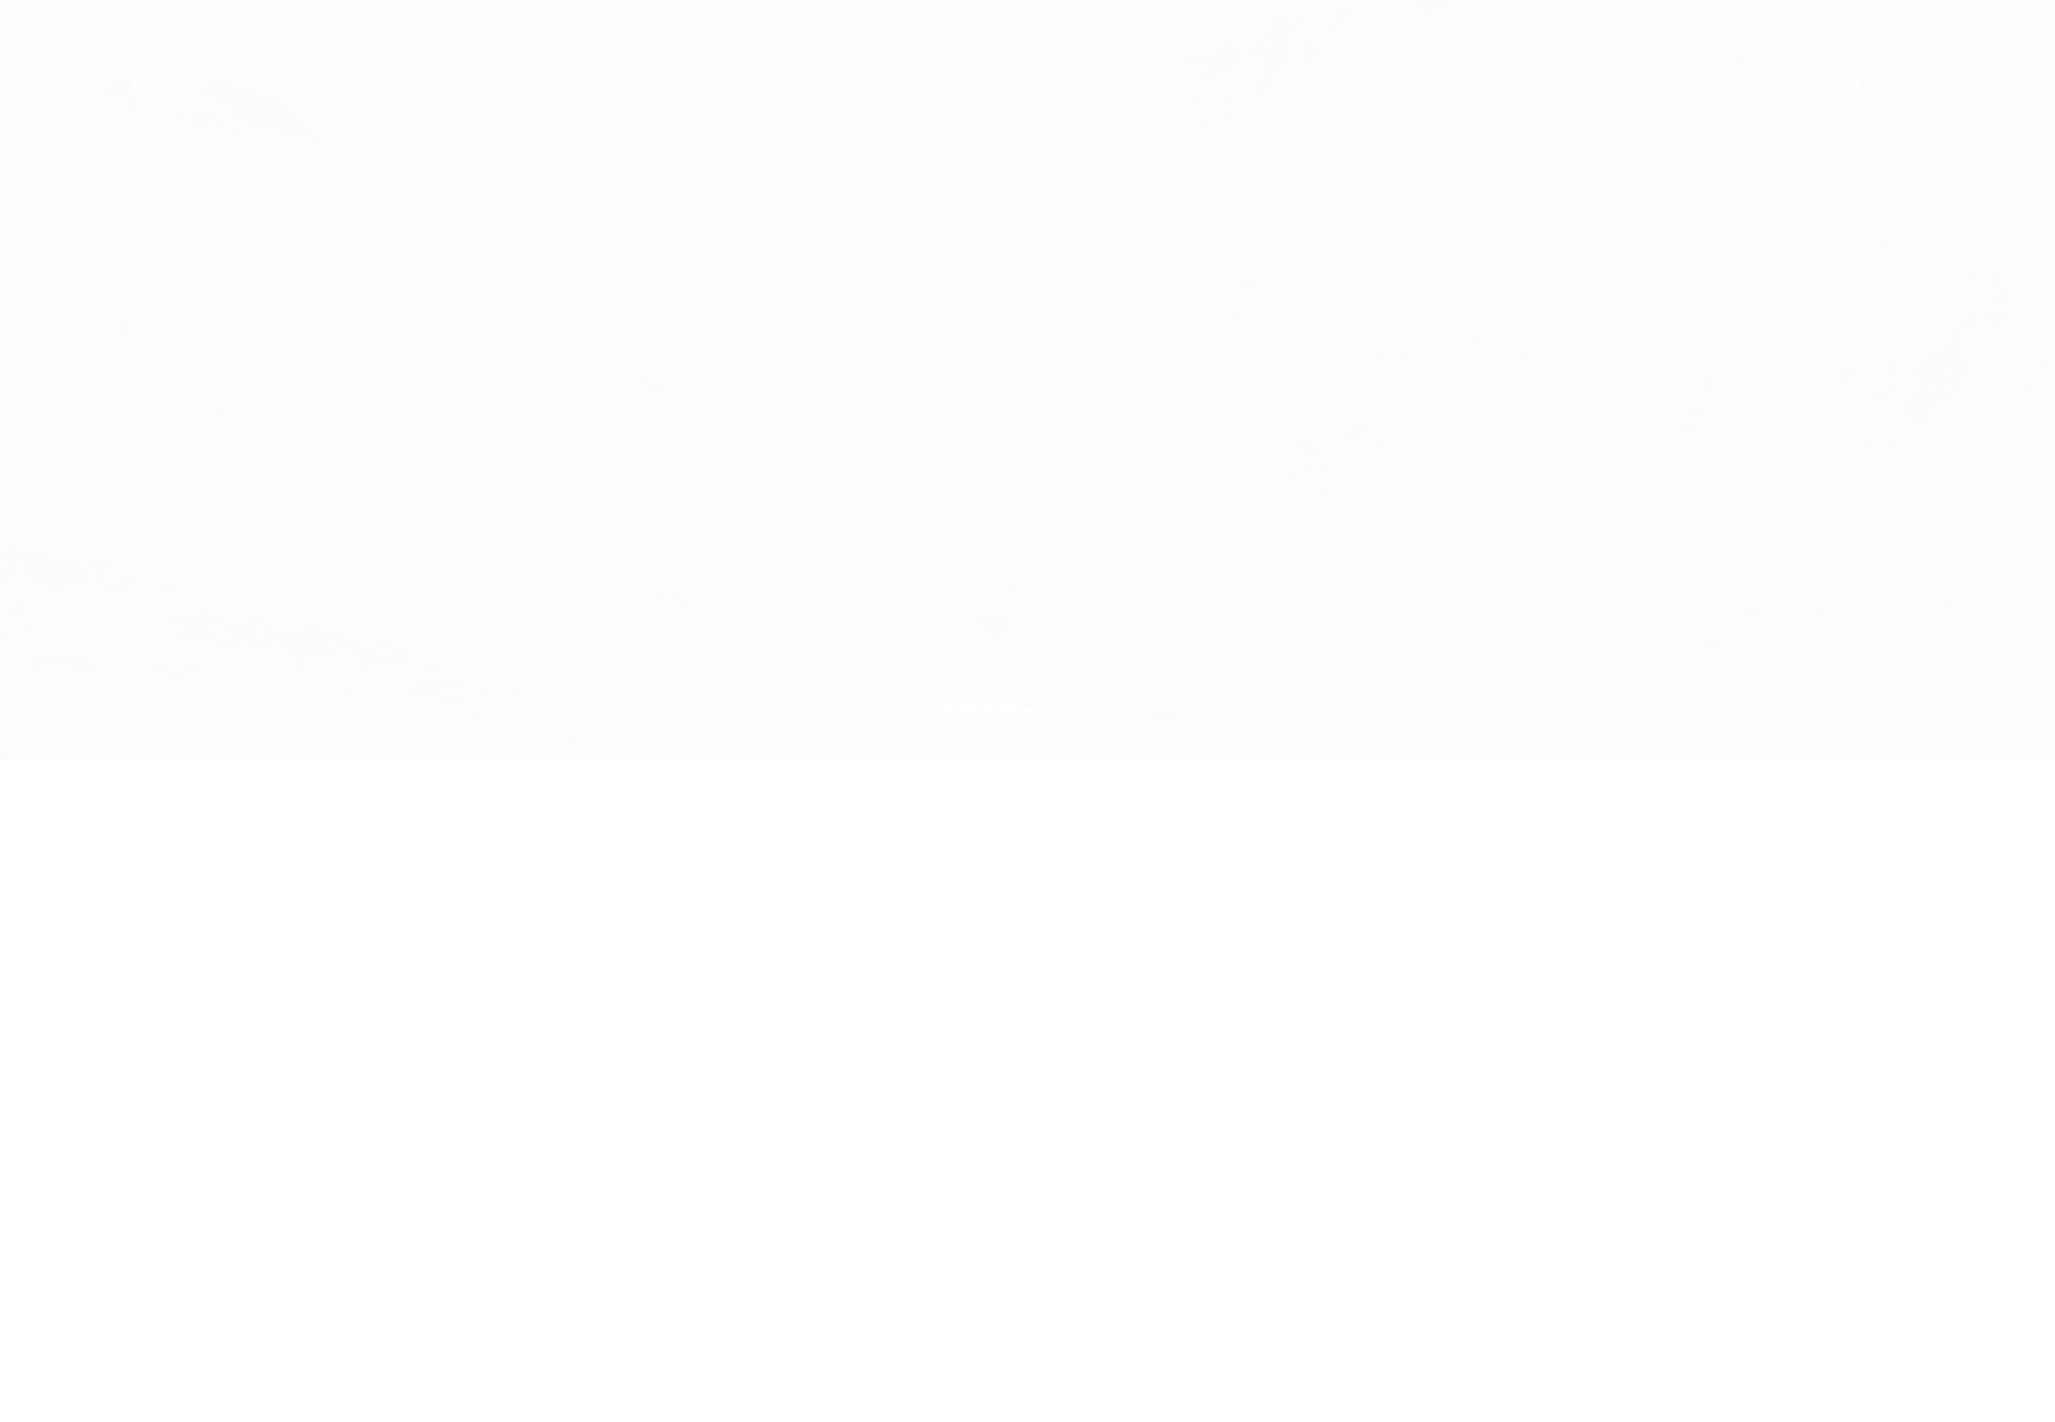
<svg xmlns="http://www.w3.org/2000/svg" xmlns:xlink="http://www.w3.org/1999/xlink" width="2055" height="1422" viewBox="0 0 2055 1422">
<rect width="100%" height="100%" fill="#ffffff"/>
<image xlink:href="image0.png" x="0" y="0" width="2055" height="762"/>
<image xlink:href="image1.png" x="133" y="60" width="56" height="56"/>
<image xlink:href="image2.png" x="1836" y="74" width="26" height="26"/>
<rect fill="#ffffff" x="942" y="706" width="15" height="6"/>
<rect fill="#ffffff" x="961" y="704" width="16" height="8"/>
<rect fill="#ffffff" x="980" y="704" width="16" height="8"/>
<rect fill="#ffffff" x="999" y="705" width="16" height="7"/>
<rect fill="#ffffff" x="1019" y="707" width="15" height="5"/>
</svg>
